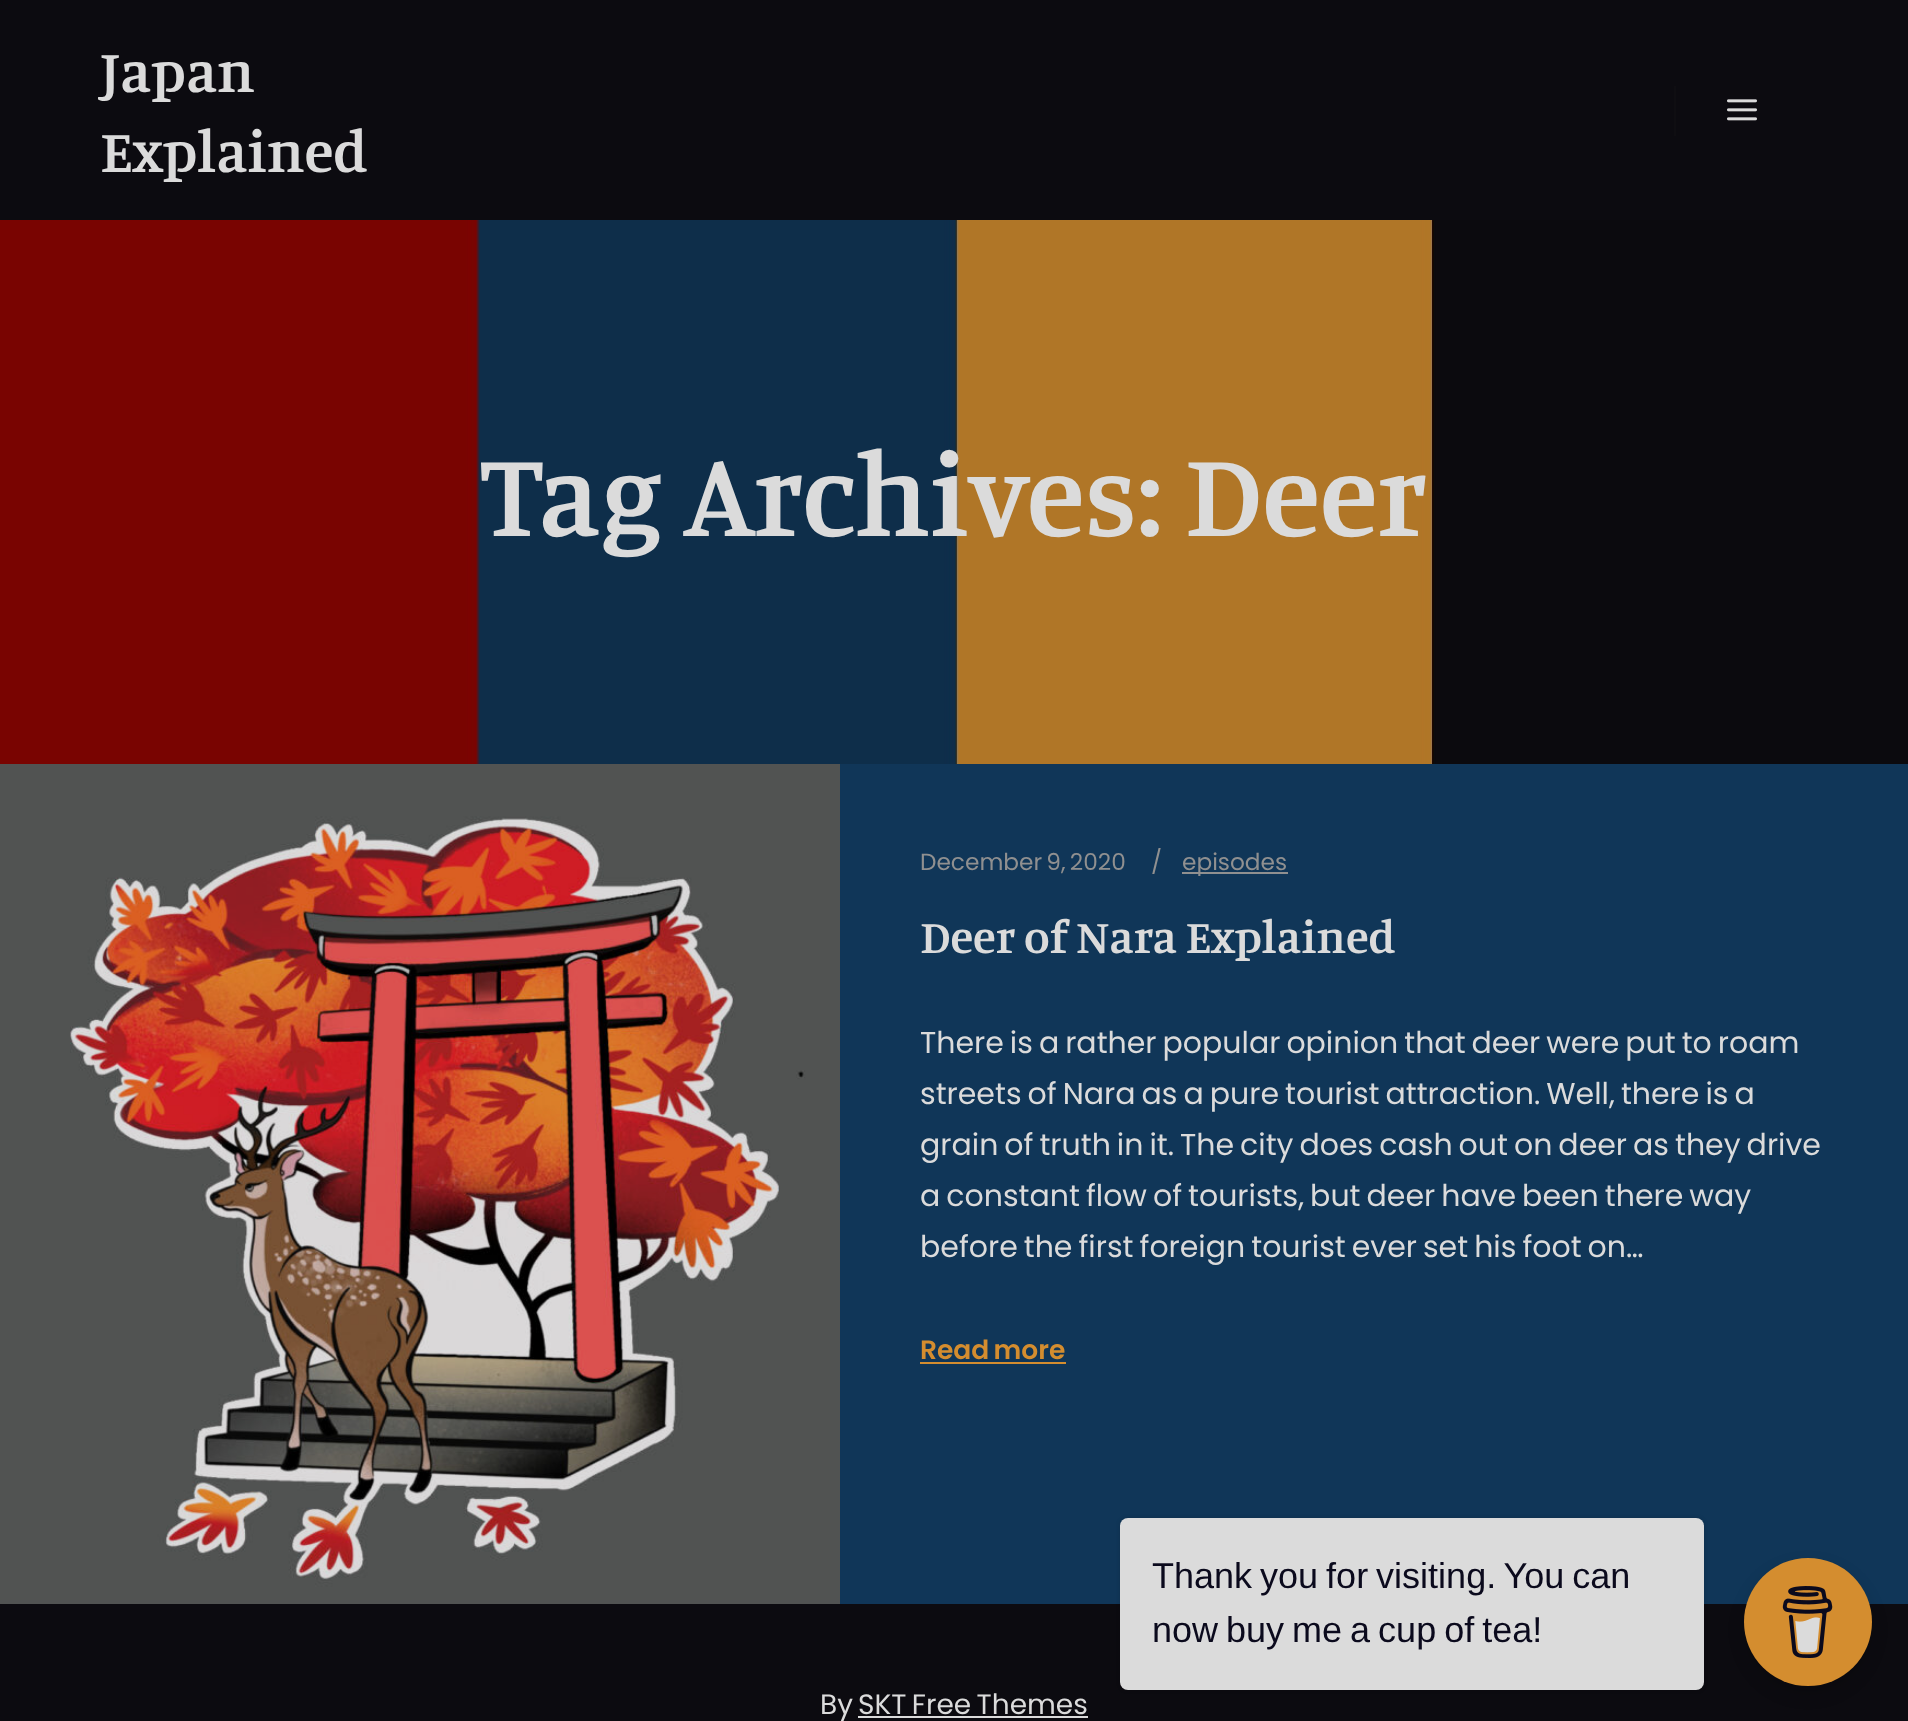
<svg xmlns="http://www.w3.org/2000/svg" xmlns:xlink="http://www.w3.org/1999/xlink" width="1908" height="1721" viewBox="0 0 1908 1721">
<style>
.cls-1{font:600 60px Manuale;fill:#dbdbdb}
.cls-2{font:600 120px Manuale;fill:#dbdbdb}
.cls-3{font:23.25px Poppins;fill:#909090}
.cls-4{font:600 47.1px Manuale;fill:#dbdbdb}
.cls-5{font:30px Poppins;fill:#dbdbdb}
.cls-6{font:600 26.5px Poppins;fill:#d48d2f}
.cls-7{font:28px Poppins;fill:#dbdbdb}
.cls-8{font:36px Liberation Sans;fill:#0b0a1d}
</style>
<rect width="100%" height="100%" fill="#ffffff"/>
<rect fill="#0c0b10" x="0" y="0" width="1908" height="220"/>
<rect fill="#0f0e12" x="1674" y="86" width="2" height="50"/>
<image xlink:href="image0.png" x="1727" y="99" width="30" height="22"/>
<image xlink:href="image1.png" x="0" y="220" width="1908" height="544"/>
<rect fill="#103658" x="840" y="764" width="1068" height="840"/>
<image xlink:href="image2.png" x="0" y="764" width="840" height="840"/>
<rect fill="#909090" x="1182" y="872" width="106" height="2"/>
<rect fill="#d48d2f" x="920" y="1362" width="146" height="2"/>
<rect fill="#0c0b10" x="0" y="1604" width="1908" height="117"/>
<rect fill="#dbdbdb" x="858" y="1716" width="230" height="2"/>
<rect fill="#000000" fill-opacity="0.15" filter="blur(2px)" x="1120" y="1518" width="584" height="172" rx="8"/>
<rect fill="#dbdbdb" x="1120" y="1518" width="584" height="172" rx="8"/>
<rect fill="#000000" fill-opacity="0.15" filter="blur(8px)" x="1744" y="1566" width="128" height="128" rx="64"/>
<circle fill="#d48d2f" cx="1808" cy="1622" r="64"/>
<image xlink:href="image3.png" x="1782" y="1586" width="51" height="72"/>
<text class="cls-1"><tspan x="100" y="92">Japan</tspan><tspan x="100" y="172">Explained</tspan></text>
<text class="cls-2" x="480" y="536">Tag Archives: Deer</text>
<text class="cls-3" x="920" y="870" word-spacing="-2">December 9, 2020</text>
<text class="cls-3" x="1151" y="870">/</text>
<text class="cls-3" x="1182" y="870">episodes</text>
<text class="cls-4" x="920" y="953">Deer of Nara Explained</text>
<text class="cls-5"><tspan x="920" y="1053" word-spacing="-2">There is a rather popular opinion that deer were put to roam</tspan><tspan x="920" y="1104" word-spacing="-2">streets of Nara as a pure tourist attraction. Well, there is a</tspan><tspan x="920" y="1155" word-spacing="-2">grain of truth in it. The city does cash out on deer as they drive</tspan><tspan x="920" y="1206" word-spacing="-2">a constant flow of tourists, but deer have been there way</tspan><tspan x="920" y="1257" word-spacing="-2">before the first foreign tourist ever set his foot on…</tspan></text>
<text class="cls-6" x="920" y="1359" word-spacing="-2">Read more</text>
<text class="cls-7" x="820" y="1714">By</text>
<text class="cls-7" x="858" y="1714" word-spacing="-2">SKT Free Themes</text>
<text class="cls-8"><tspan x="1152" y="1588" word-spacing="-2">Thank you for visiting. You can</tspan><tspan x="1152" y="1642" word-spacing="-2">now buy me a cup of tea!</tspan></text>
</svg>
